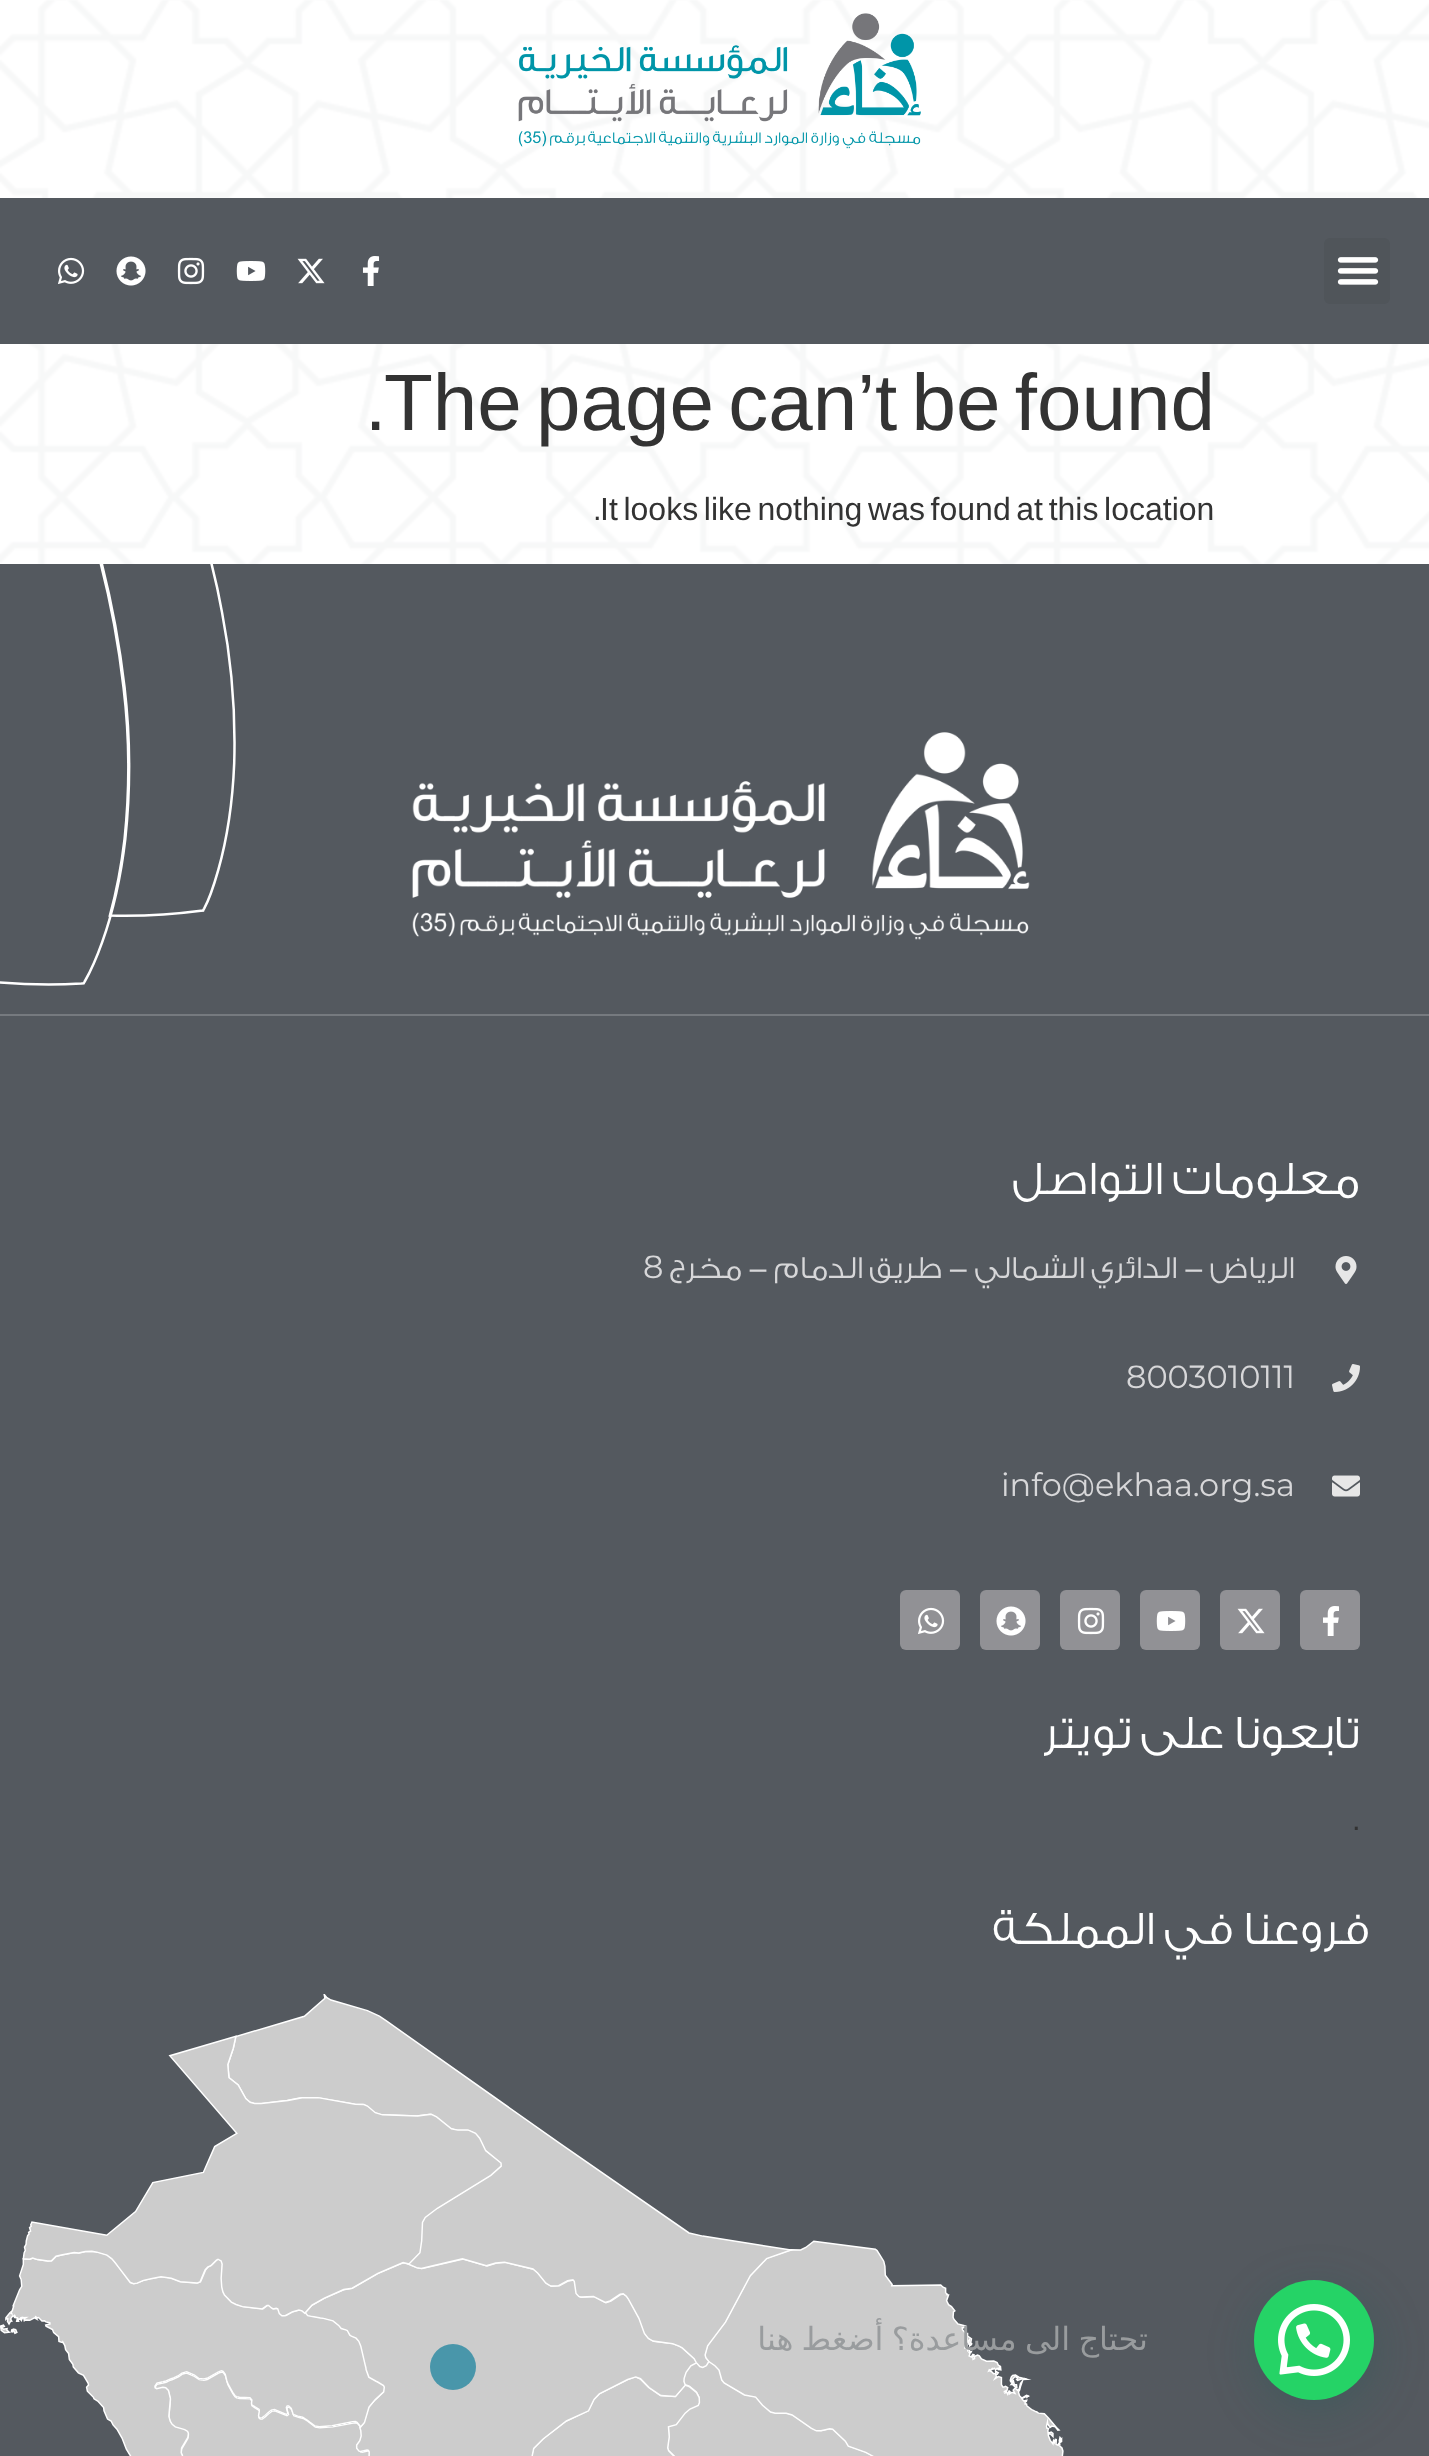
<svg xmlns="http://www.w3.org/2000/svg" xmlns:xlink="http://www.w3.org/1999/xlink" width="1429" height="2456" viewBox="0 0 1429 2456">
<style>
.cls-1{font:80px Liberation Sans;fill:#333333}
.cls-2{font:300 80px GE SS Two;fill:#333333}
.cls-3{font:32px Liberation Sans;fill:#333333}
.cls-4{font:300 32px GE SS Two;fill:#333333}
.cls-5{font:300 48px GE SS Two;direction:rtl;fill:#ffffff}
.cls-6{font:300 32px GE SS Two;direction:rtl;fill:#d7d7d9}
.cls-7{font:32px Montserrat;fill:#d7d7d9}
.cls-8{font:32px DejaVu Sans;direction:rtl;fill:#999c9e}
</style>
<rect width="100%" height="100%" fill="#ffffff"/>
<image xlink:href="image0.png" x="0" y="0" width="1429" height="564"/>
<image xlink:href="image1.png" x="518" y="13" width="403" height="136"/>
<rect fill="#54595f" x="0" y="198" width="1429" height="146"/>
<rect fill="#50555a" x="1324" y="238" width="66" height="66" rx="6"/>
<image xlink:href="image2.png" x="1337" y="257" width="42" height="28"/>
<image xlink:href="image3.png" x="362" y="256" width="18" height="30"/>
<image xlink:href="image4.png" x="297" y="258" width="28" height="26"/>
<image xlink:href="image5.png" x="236" y="261" width="30" height="20"/>
<image xlink:href="image6.png" x="177" y="257" width="28" height="28"/>
<image xlink:href="image7.png" x="116" y="256" width="30" height="30"/>
<image xlink:href="image8.png" x="58" y="257" width="27" height="27"/>
<rect fill="#54595f" x="0" y="564" width="1429" height="1892"/>
<image xlink:href="image9.png" x="0" y="564" width="236" height="422"/>
<rect fill="#767a7f" x="0" y="1014" width="1429" height="2"/>
<image xlink:href="image10.png" x="412" y="732" width="618" height="208"/>
<image xlink:href="image11.png" x="1335" y="1256" width="22" height="28"/>
<image xlink:href="image12.png" x="1332" y="1364" width="28" height="28"/>
<image xlink:href="image13.png" x="1332" y="1475" width="28" height="22"/>
<rect fill="#919195" x="1300" y="1590" width="60" height="60" rx="6"/>
<image xlink:href="image14.png" x="1323" y="1606" width="16" height="30"/>
<rect fill="#919195" x="1220" y="1590" width="60" height="60" rx="6"/>
<image xlink:href="image15.png" x="1237" y="1608" width="28" height="26"/>
<rect fill="#919195" x="1140" y="1590" width="60" height="60" rx="6"/>
<image xlink:href="image16.png" x="1156" y="1611" width="30" height="20"/>
<rect fill="#919195" x="1060" y="1590" width="60" height="60" rx="6"/>
<image xlink:href="image17.png" x="1077" y="1607" width="28" height="28"/>
<rect fill="#919195" x="980" y="1590" width="60" height="60" rx="6"/>
<image xlink:href="image18.png" x="996" y="1606" width="30" height="30"/>
<rect fill="#919195" x="900" y="1590" width="60" height="60" rx="6"/>
<image xlink:href="image19.png" x="918" y="1607" width="27" height="27"/>
<image xlink:href="image20.png" x="0" y="1994" width="1064" height="462"/>
<circle fill="#4996aa" cx="453" cy="2367" r="23"/>
<rect fill="#075e54" fill-opacity="0.24" filter="blur(24px)" x="1256" y="2292" width="120" height="120" rx="60"/>
<circle fill="#25d366" cx="1314" cy="2340" r="60"/>
<image xlink:href="image21.png" x="1278" y="2304" width="72" height="72"/>
<text class="cls-1" x="384" y="430" word-spacing="-8">The page can’t be found</text>
<text class="cls-2" x="370" y="430">.</text>
<text class="cls-3" x="600" y="520" word-spacing="-3.25">It looks like nothing was found at this location</text>
<text class="cls-4" x="595" y="520">.</text>
<text class="cls-5" x="1360" y="1194">معلومات التواصل</text>
<text class="cls-6" x="1295" y="1278">الرياض - الدائري الشمالي - طريق الدمام - مخرج</text>
<text class="cls-7" x="643" y="1278">8</text>
<text class="cls-7" x="1126" y="1388">8003010111</text>
<text class="cls-7" x="1001" y="1496">info@ekhaa.org.sa</text>
<text class="cls-5" x="1360" y="1748">تابعونا على تويتر</text>
<text class="cls-4" x="1354" y="1830">.</text>
<text class="cls-5" x="1370" y="1944">فروعنا في المملكة</text>
<text class="cls-8" x="1148" y="2350" word-spacing="-2">تحتاج الى مساعدة؟ أضغط هنا</text>
</svg>
